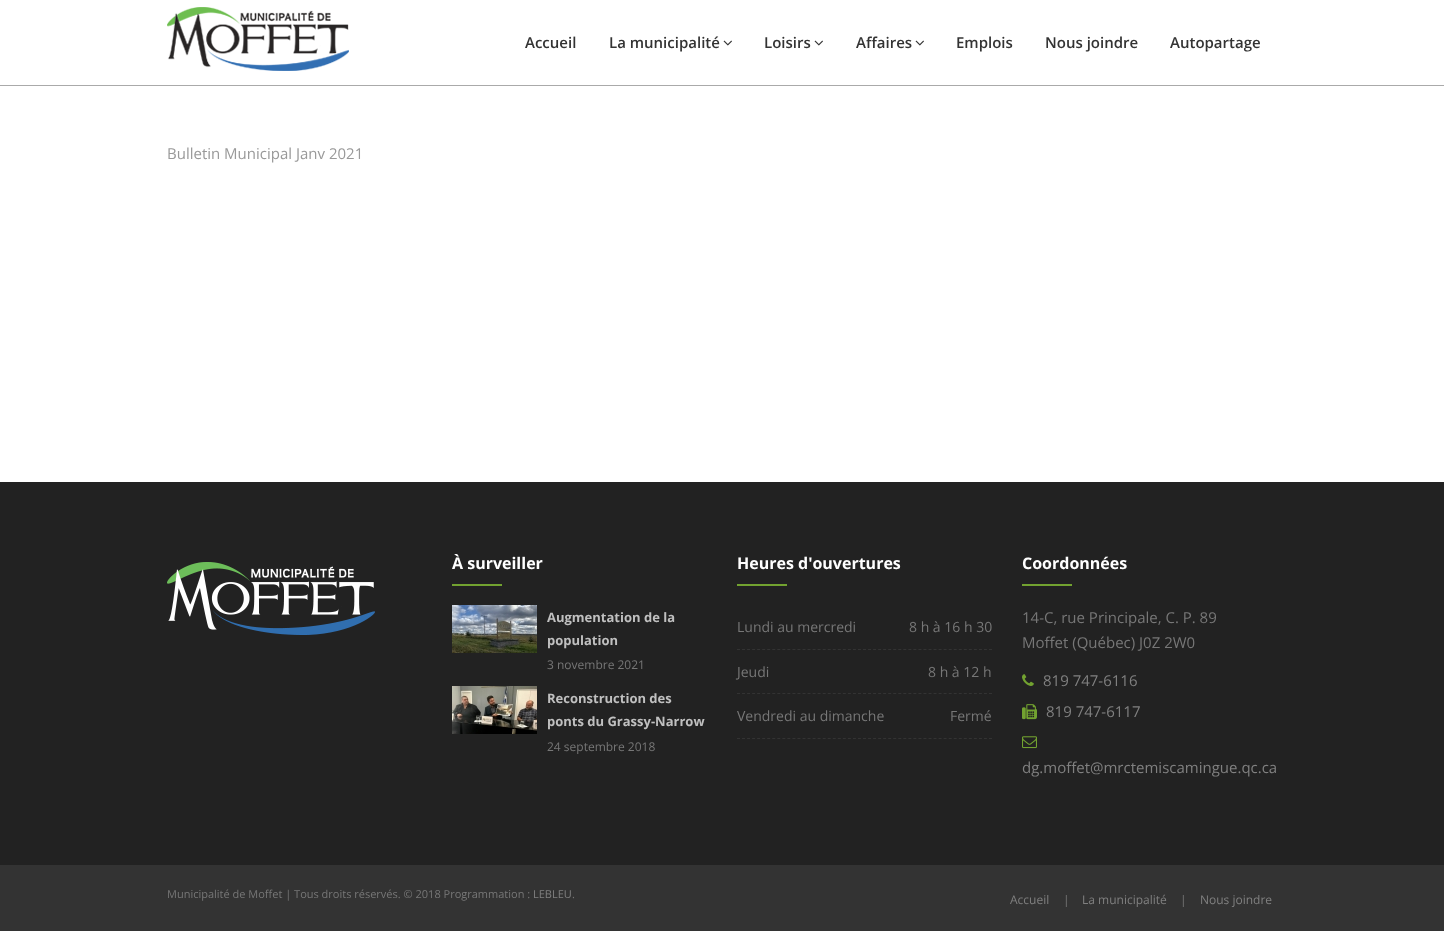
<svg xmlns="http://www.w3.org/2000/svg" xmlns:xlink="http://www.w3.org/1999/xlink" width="1444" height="931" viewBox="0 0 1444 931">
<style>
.cls-1{font:600 15px Open Sans;fill:#333333}
.cls-2{font:15px Open Sans;fill:#999999}
.cls-3{font:bold 16px Open Sans;fill:#ffffff}
.cls-4{font:bold 13px Open Sans;fill:#c0c0c0}
.cls-5{font:12px Open Sans;fill:#777777}
.cls-6{font:14px Open Sans;fill:#777777}
.cls-7{font:15px Open Sans;fill:#777777}
.cls-8{font:15px Open Sans;fill:#808080}
.cls-9{font:11px Open Sans;fill:#777777}
.cls-10{font:11px Open Sans;fill:#808080}
.cls-11{font:12px Open Sans;fill:#808080}
</style>
<rect width="100%" height="100%" fill="#ffffff"/>
<rect fill="#aaaaaa" x="0" y="85" width="1444" height="1"/>
<image xlink:href="image0.png" x="167" y="7" width="182" height="64"/>
<image xlink:href="image1.png" x="723" y="40" width="9" height="6"/>
<image xlink:href="image1.png" x="814" y="40" width="9" height="6"/>
<image xlink:href="image1.png" x="915" y="40" width="9" height="6"/>
<rect fill="#222222" x="0" y="482" width="1444" height="383"/>
<image xlink:href="image2.png" x="167" y="562" width="208" height="73"/>
<rect fill="#72a230" x="452" y="584" width="50" height="2"/>
<image xlink:href="image3.png" x="452" y="605" width="85" height="48"/>
<image xlink:href="image4.png" x="452" y="686" width="85" height="48"/>
<rect fill="#72a230" x="737" y="584" width="50" height="2"/>
<path fill="none" stroke="#333333" stroke-dasharray="3 2.04" d="M737 649.5H992"/>
<path fill="none" stroke="#333333" stroke-dasharray="3 2.04" d="M737 693.5H992"/>
<path fill="none" stroke="#333333" stroke-dasharray="3 2.04" d="M737 738.5H992"/>
<rect fill="#72a230" x="1022" y="584" width="50" height="2"/>
<image xlink:href="image5.png" x="1022" y="674" width="12" height="12"/>
<image xlink:href="image6.png" x="1022" y="704" width="15" height="16"/>
<image xlink:href="image7.png" x="1022" y="736" width="15" height="13"/>
<rect fill="#333333" x="0" y="865" width="1444" height="66"/>
<text class="cls-1" x="525" y="48">Accueil</text>
<text class="cls-1" x="609" y="48">La municipalité</text>
<text class="cls-1" x="764" y="48">Loisirs</text>
<text class="cls-1" x="856" y="48">Affaires</text>
<text class="cls-1" x="956" y="48">Emplois</text>
<text class="cls-1" x="1045" y="48">Nous joindre</text>
<text class="cls-1" x="1170" y="48">Autopartage</text>
<text class="cls-2" x="167" y="159">Bulletin Municipal Janv 2021</text>
<text class="cls-3" x="452" y="569">À surveiller</text>
<text class="cls-4"><tspan x="547" y="622">Augmentation de la</tspan><tspan x="547" y="645">population</tspan></text>
<text class="cls-5" x="547" y="669">3 novembre 2021</text>
<text class="cls-4"><tspan x="547" y="703">Reconstruction des</tspan><tspan x="547" y="726">ponts du Grassy-Narrow</tspan></text>
<text class="cls-5" x="547" y="751">24 septembre 2018</text>
<text class="cls-3" x="737" y="569">Heures d'ouvertures</text>
<text class="cls-6" x="737" y="632">Lundi au mercredi</text>
<text class="cls-6" x="909" y="632">8 h à 16 h 30</text>
<text class="cls-6" x="737" y="677">Jeudi</text>
<text class="cls-6" x="928" y="677">8 h à 12 h</text>
<text class="cls-6" x="737" y="721">Vendredi au dimanche</text>
<text class="cls-6" x="950" y="721">Fermé</text>
<text class="cls-3" x="1022" y="569">Coordonnées</text>
<text class="cls-7"><tspan x="1022" y="623">14-C, rue Principale, C. P. 89</tspan><tspan x="1022" y="648">Moffet (Québec) J0Z 2W0</tspan></text>
<text class="cls-8" x="1043" y="686">819 747-6116</text>
<text class="cls-8" x="1046" y="717">819 747-6117</text>
<text class="cls-8" x="1022" y="773">dg.moffet@mrctemiscamingue.qc.ca</text>
<text class="cls-9" x="167" y="898">Municipalité de Moffet | Tous droits réservés. © 2018 Programmation :</text>
<text class="cls-10" x="533" y="898">LEBLEU</text>
<text class="cls-9" x="572" y="898">.</text>
<text class="cls-11" x="1010" y="904">Accueil</text>
<text class="cls-5" x="1063" y="904">|</text>
<text class="cls-11" x="1082" y="904">La municipalité</text>
<text class="cls-5" x="1180" y="904">|</text>
<text class="cls-11" x="1200" y="904">Nous joindre</text>
</svg>
